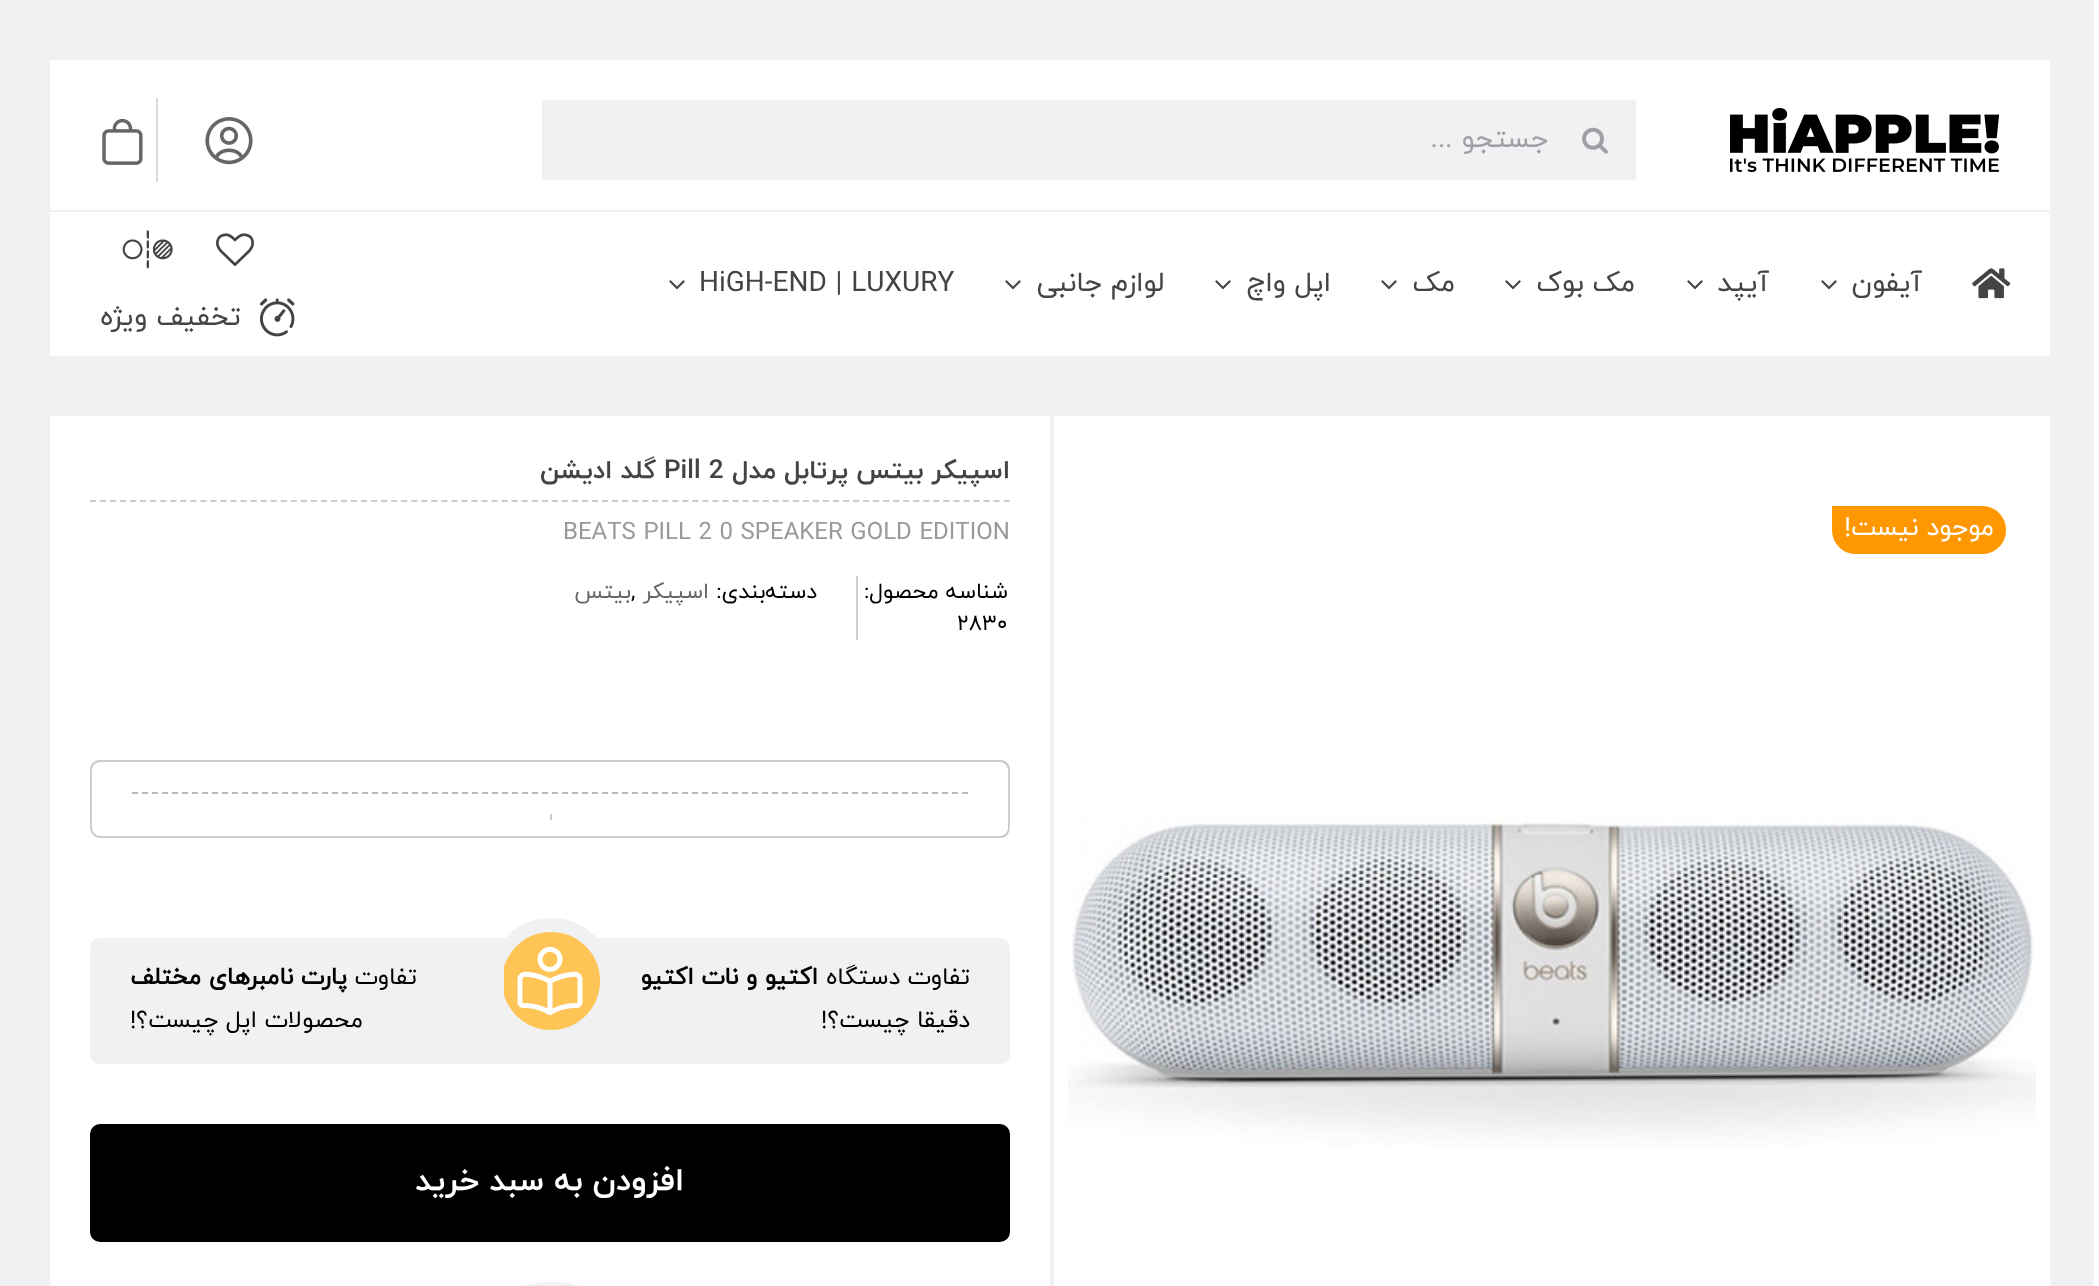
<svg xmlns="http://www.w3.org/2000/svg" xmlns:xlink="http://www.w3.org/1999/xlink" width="2099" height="1286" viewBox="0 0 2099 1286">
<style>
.cls-1{font:28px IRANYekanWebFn;direction:rtl;fill:#9ea0a4}
.cls-2{font:28px IRANYekanWebFn;direction:rtl;fill:#444444}
.cls-3{font:28px IRANYekanWebFn;fill:#444444}
.cls-4{font:26px IRANYekanWebFn;direction:rtl;fill:#ffffff}
.cls-5{font:bold 26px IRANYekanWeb;direction:rtl;fill:#444444}
.cls-6{font:bold 26px IRANYekanWeb;fill:#444444}
.cls-7{font:24px IRANYekanWeb;fill:#999999}
.cls-8{font:22px IRANYekanWebFn;direction:rtl;fill:#000000}
.cls-9{font:22px IRANYekanWebFn;fill:#000000}
.cls-10{font:22px IRANYekanWebFn;direction:rtl;fill:#666666}
.cls-11{font:24px IRANYekanWeb;direction:rtl;fill:#000000}
.cls-12{font:bold 24px 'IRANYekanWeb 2';direction:rtl;fill:#000000}
.cls-13{font:bold 32px IRANYekanWebFn;direction:rtl;fill:#ffffff}
</style>
<rect width="100%" height="100%" fill="#f0f1f3"/>
<rect fill="#ffffff" x="2094" y="0" width="5" height="1286"/>
<rect fill="#ffffff" x="50" y="60" width="2000" height="150"/>
<image xlink:href="image0.png" x="1730" y="108" width="270" height="64"/>
<rect fill="#f0f1f3" x="542" y="100" width="1094" height="80"/>
<image xlink:href="image1.png" x="1582" y="127" width="26" height="27"/>
<image xlink:href="image2.png" x="205" y="117" width="48" height="48"/>
<rect fill="#dddddd" x="156" y="98" width="2" height="84"/>
<image xlink:href="image3.png" x="102" y="118" width="41" height="47"/>
<rect fill="#ffffff" x="50" y="212" width="2000" height="144"/>
<image xlink:href="image4.png" x="1972" y="268" width="39" height="31"/>
<image xlink:href="image5.png" x="1821" y="280" width="16" height="10"/>
<image xlink:href="image5.png" x="1687" y="280" width="16" height="10"/>
<image xlink:href="image5.png" x="1505" y="280" width="16" height="10"/>
<image xlink:href="image5.png" x="1381" y="280" width="16" height="10"/>
<image xlink:href="image5.png" x="1215" y="280" width="16" height="10"/>
<image xlink:href="image5.png" x="1005" y="280" width="16" height="10"/>
<image xlink:href="image5.png" x="669" y="280" width="16" height="10"/>
<image xlink:href="image6.png" x="216" y="233" width="38" height="33"/>
<image xlink:href="image7.png" x="122" y="230" width="51" height="39"/>
<image xlink:href="image8.png" x="260" y="298" width="35" height="39"/>
<rect fill="#ffffff" x="1054" y="416" width="996" height="870"/>
<path fill="#ff9800" d="M1832 506H1982C1995.5 506 2006 516.5 2006 530C2006 543.5 1995.5 554 1982 554H1856C1842.5 554 1832 543.5 1832 530Z"/>
<image xlink:href="image9.png" x="1068" y="815" width="968" height="332"/>
<rect fill="#ffffff" x="50" y="416" width="1000" height="870"/>
<path fill="none" stroke="#cccccc" stroke-width="2" stroke-dasharray="6 4.04" d="M90 501H1010"/>
<rect fill="#cccccc" x="856" y="576" width="2" height="64"/>
<path fill="#cccccc" fill-rule="evenodd" d="M100 760H1000C1006 760 1010 764 1010 770V814H90V770C90 764 94 760 100 760ZM100 762H1000C1004 762 1008 766 1008 770V814H92V770C92 766 96 762 100 762Z"/>
<path fill="none" stroke="#bbbbbb" stroke-width="2" stroke-dasharray="6 4" d="M132 793H968"/>
<rect fill="#cccccc" x="1008" y="814" width="2" height="6"/>
<rect fill="#cccccc" x="550" y="814" width="2" height="6"/>
<rect fill="#cccccc" x="90" y="814" width="2" height="6"/>
<path fill="#cccccc" fill-rule="evenodd" d="M90 820H1010C1010 827 1011 838 1000 838H100C95 838 90 833 90 828ZM92 820H1008V828C1008 832 1004 836 1000 836H100C96 836 92 832 92 828Z"/>
<path fill="#f0f1f3" d="M596 938H1000C1005.5 938 1010 942.5 1010 948V1054C1010 1059.5 1005.5 1064 1000 1064H596Z"/>
<rect fill="#f0f1f3" x="504" y="938" width="92" height="126"/>
<circle fill="#ffc456" stroke="#f0f1f3" stroke-width="14" cx="551" cy="981" r="56"/>
<image xlink:href="image10.png" x="517" y="946" width="66" height="70"/>
<path fill="#f0f1f3" d="M100 938H504V1064H100C94.5 1064 90 1059.5 90 1054V948C90 942.5 94.5 938 100 938Z"/>
<rect fill="#000000" x="90" y="1124" width="920" height="118" rx="10"/>
<rect fill="none" stroke="#f0f1f3" stroke-width="14" x="495" y="1289" width="112" height="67" rx="56"/>
<text class="cls-1" x="1548" y="147">جستجو ...</text>
<text class="cls-2" x="1922" y="291">آیفون</text>
<text class="cls-2" x="1769" y="291">آیپد</text>
<text class="cls-2" x="1635" y="291">مک بوک</text>
<text class="cls-2" x="1455" y="291">مک</text>
<text class="cls-2" x="1331" y="291">اپل واچ</text>
<text class="cls-2" x="1164" y="291">لوازم جانبی</text>
<text class="cls-3" x="699" y="291">HiGH-END | LUXURY</text>
<text class="cls-2" x="241" y="325">تخفیف ویژه</text>
<text class="cls-4" x="1994" y="535">موجود نیست!</text>
<text class="cls-5" x="1010" y="478">اسپیکر بیتس پرتابل مدل</text>
<text class="cls-6" x="664" y="478">Pill 2</text>
<text class="cls-5" x="656" y="478">گلد ادیشن</text>
<text class="cls-7" x="563" y="539">BEATS PILL 2 0 SPEAKER GOLD EDITION</text>
<text class="cls-8" x="1008" y="598">شناسه محصول:</text>
<text class="cls-9" x="957" y="630">2830</text>
<text class="cls-8" x="817" y="598">دسته‌بندی:</text>
<text class="cls-10" x="709" y="598">اسپیکر</text>
<text class="cls-9" x="631" y="598">,</text>
<text class="cls-10" x="631" y="598">بیتس</text>
<text class="cls-11" x="970" y="984">تفاوت دستگاه</text>
<text class="cls-12" x="818" y="984">اکتیو و نات اکتیو</text>
<text class="cls-11" x="970" y="1027">دقیقا چیست؟!</text>
<text class="cls-11" x="417" y="984">تفاوت</text>
<text class="cls-12" x="347" y="984">پارت نامبرهای مختلف</text>
<text class="cls-11" x="363" y="1027">محصولات اپل چیست؟!</text>
<text class="cls-13" x="684" y="1190">افزودن به سبد خرید</text>
</svg>
